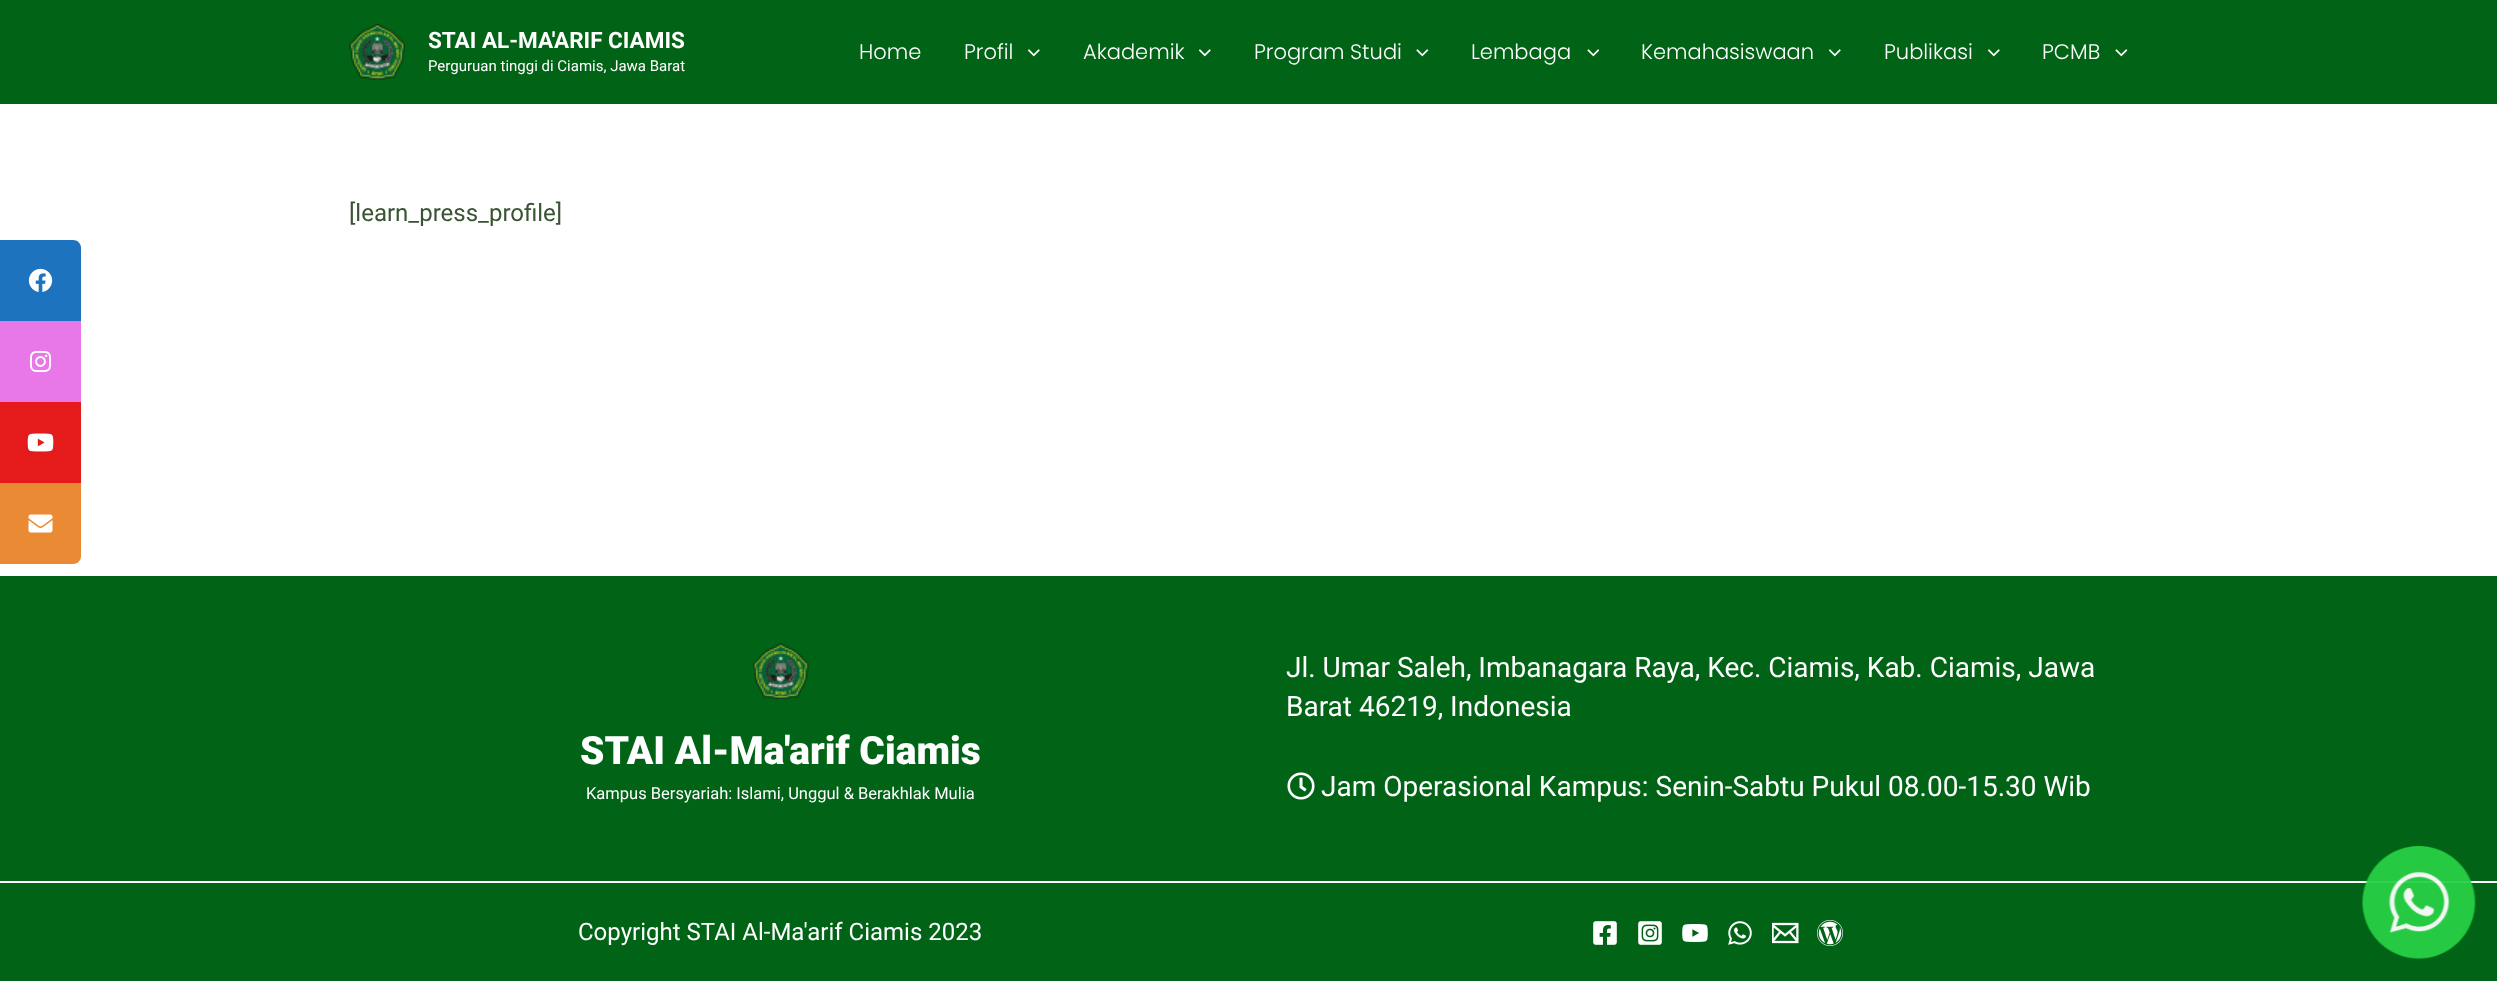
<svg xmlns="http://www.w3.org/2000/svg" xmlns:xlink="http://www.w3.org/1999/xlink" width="2497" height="981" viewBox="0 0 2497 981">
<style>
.cls-1{font:bold 22.5px Roboto;fill:#ffffff}
.cls-2{font:15px Roboto;fill:#ffffff}
.cls-3{font:300 21px Poppins;fill:#ffffff}
.cls-4{font:24px Roboto;fill:#385432}
.cls-5{font:900 39px Roboto;fill:#ffffff}
.cls-6{font:16.5px Roboto;fill:#ffffff}
.cls-7{font:28px Roboto;fill:#ffffff}
.cls-8{font:24px Roboto;fill:#ffffff}
</style>
<rect width="100%" height="100%" fill="#ffffff"/>
<path fill="#1e73be" d="M0 240H73C77.5 240 81 243.5 81 248V321H0Z"/>
<image xlink:href="image0.png" x="28" y="268" width="25" height="24"/>
<rect fill="#e878e8" x="0" y="321" width="81" height="81"/>
<image xlink:href="image1.png" x="30" y="350" width="22" height="22"/>
<rect fill="#e51b1b" x="0" y="402" width="81" height="81"/>
<image xlink:href="image2.png" x="27" y="433" width="27" height="19"/>
<path fill="#ea8a35" d="M0 483H81V556C81 560.5 77.5 564 73 564H0Z"/>
<image xlink:href="image3.png" x="28" y="514" width="25" height="19"/>
<rect fill="#016316" x="0" y="0" width="2497" height="104"/>
<image xlink:href="image4.png" x="349" y="24" width="56" height="56"/>
<image xlink:href="image5.png" x="1028" y="49" width="12" height="8"/>
<image xlink:href="image5.png" x="1199" y="49" width="12" height="8"/>
<image xlink:href="image6.png" x="1416" y="49" width="13" height="8"/>
<image xlink:href="image7.png" x="1587" y="49" width="12" height="8"/>
<image xlink:href="image5.png" x="1829" y="49" width="12" height="8"/>
<image xlink:href="image5.png" x="1988" y="49" width="12" height="8"/>
<image xlink:href="image6.png" x="2115" y="49" width="13" height="8"/>
<rect fill="#016316" x="0" y="576" width="2497" height="305"/>
<image xlink:href="image8.png" x="753" y="643" width="56" height="56"/>
<image xlink:href="image9.png" x="1287" y="772" width="28" height="28"/>
<rect fill="#016316" x="0" y="883" width="2497" height="98"/>
<image xlink:href="image10.png" x="1593" y="921" width="24" height="24"/>
<image xlink:href="image11.png" x="1638" y="921" width="24" height="24"/>
<image xlink:href="image12.png" x="1682" y="924" width="26" height="18"/>
<image xlink:href="image13.png" x="1728" y="921" width="24" height="24"/>
<image xlink:href="image14.png" x="1772" y="922" width="27" height="22"/>
<image xlink:href="image15.png" x="1817" y="920" width="27" height="27"/>
<image xlink:href="image16.png" x="2362" y="846" width="114" height="113"/>
<text class="cls-1" x="428" y="48">STAI AL-MA'ARIF CIAMIS</text>
<text class="cls-2" x="428" y="71">Perguruan tinggi di Ciamis, Jawa Barat</text>
<text class="cls-3" x="859" y="59">Home</text>
<text class="cls-3" x="964" y="59">Profil</text>
<text class="cls-3" x="1083" y="59">Akademik</text>
<text class="cls-3" x="1254" y="59">Program Studi</text>
<text class="cls-3" x="1471" y="59">Lembaga</text>
<text class="cls-3" x="1641" y="59">Kemahasiswaan</text>
<text class="cls-3" x="1884" y="59">Publikasi</text>
<text class="cls-3" x="2042" y="59">PCMB</text>
<text class="cls-4" x="349" y="221">[learn_press_profile]</text>
<text class="cls-5" x="580" y="764">STAI Al-Ma'arif Ciamis</text>
<text class="cls-6" x="586" y="799">Kampus Bersyariah: Islami, Unggul &amp; Berakhlak Mulia</text>
<text class="cls-7"><tspan x="1286" y="677">Jl. Umar Saleh, Imbanagara Raya, Kec. Ciamis, Kab. Ciamis, Jawa</tspan><tspan x="1286" y="716">Barat 46219, Indonesia</tspan></text>
<text class="cls-7" x="1321" y="796">Jam Operasional Kampus: Senin-Sabtu Pukul 08.00-15.30 Wib</text>
<text class="cls-8" x="578" y="940">Copyright STAI Al-Ma'arif Ciamis 2023</text>
</svg>
